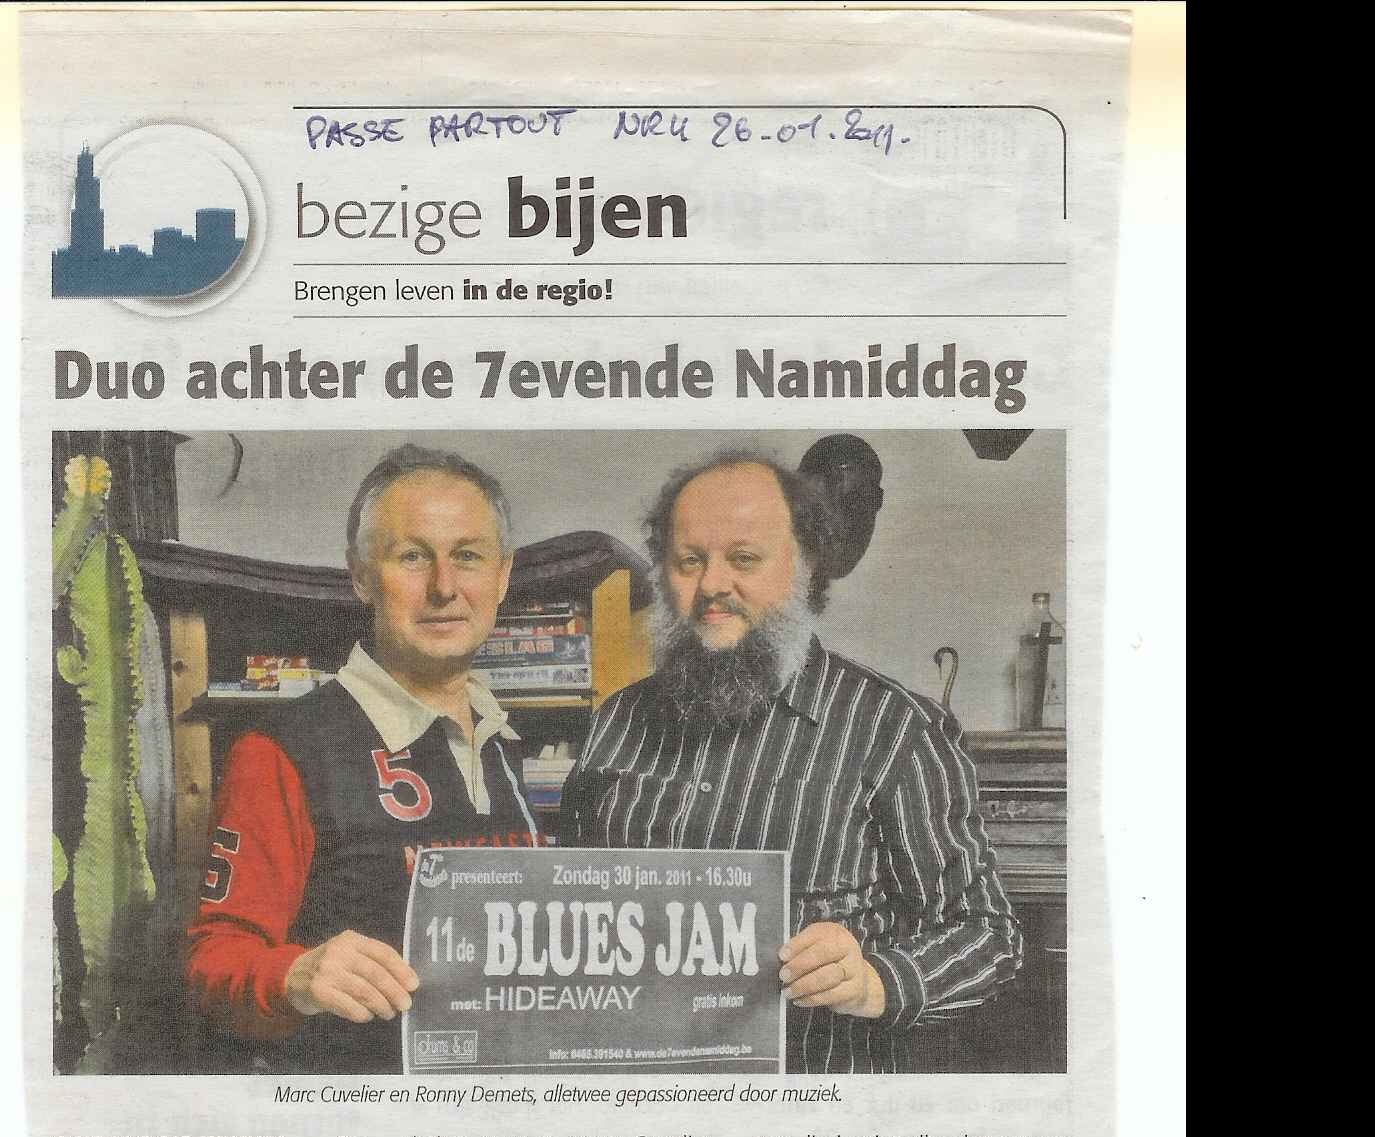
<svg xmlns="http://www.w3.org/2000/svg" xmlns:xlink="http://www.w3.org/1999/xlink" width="1375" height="1137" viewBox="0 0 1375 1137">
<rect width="100%" height="100%" fill="#000000"/>
<image xlink:href="image0.png" x="0" y="0" width="1186" height="1137"/>
</svg>
